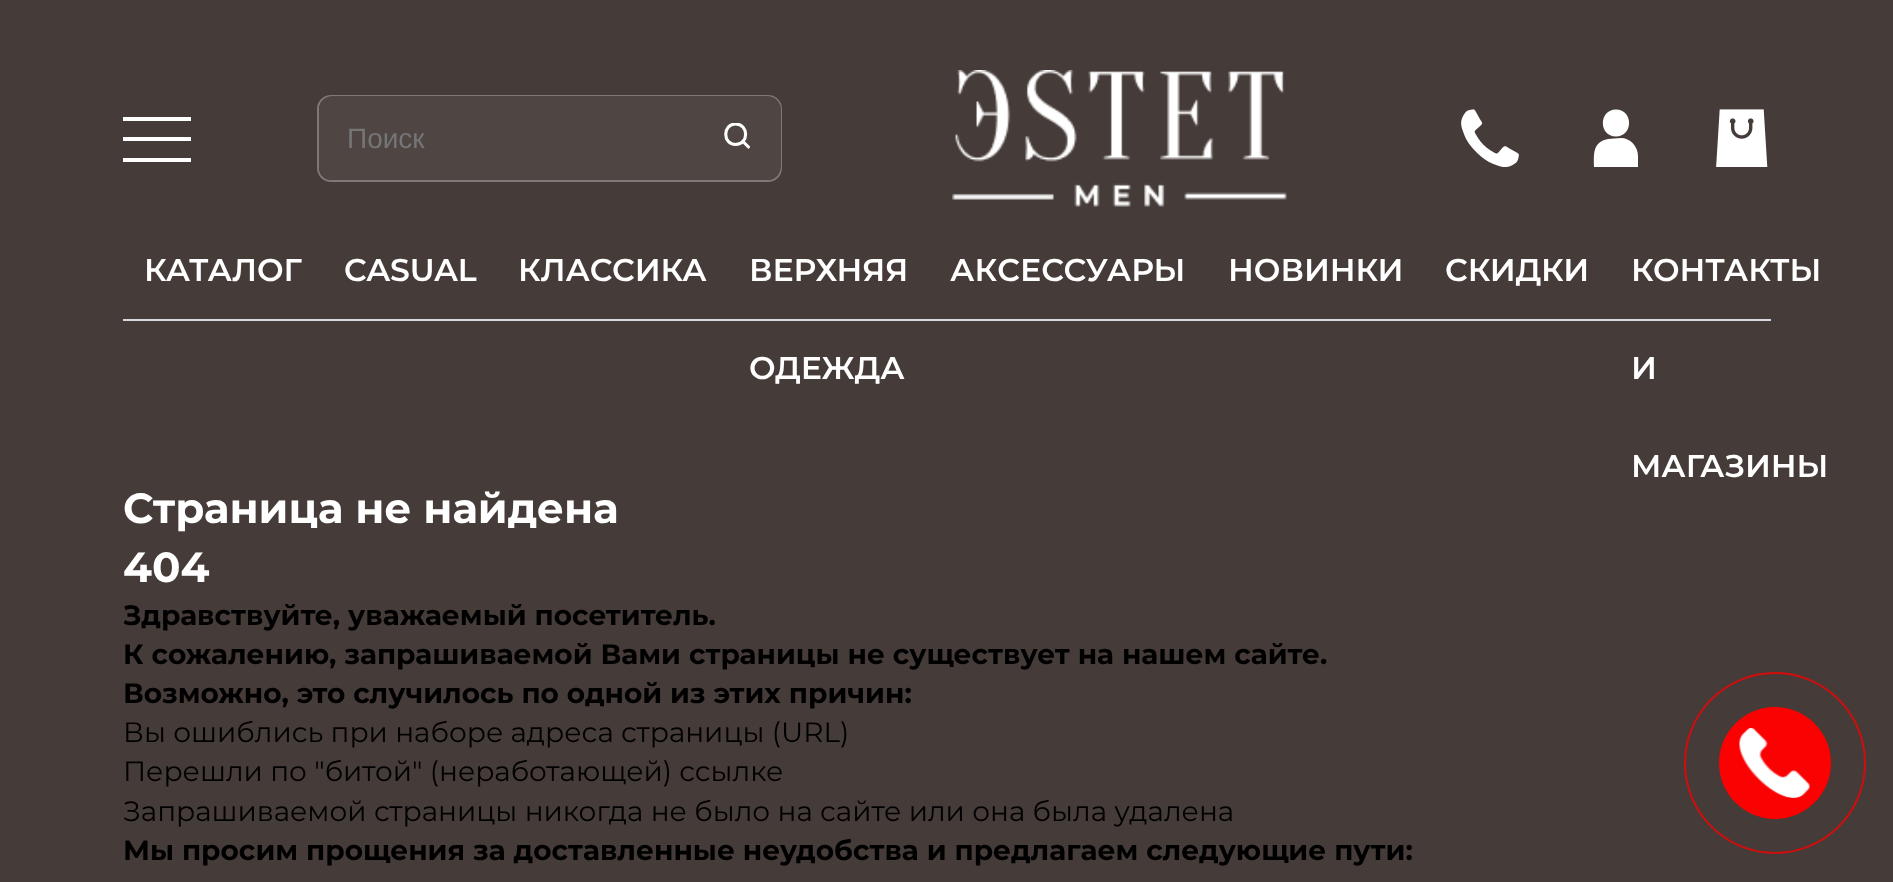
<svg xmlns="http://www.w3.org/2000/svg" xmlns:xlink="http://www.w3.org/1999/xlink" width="1893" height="882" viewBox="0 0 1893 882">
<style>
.cls-1{font:28px Liberation Sans;fill:#757575}
.cls-2{font:600 31.5px Montserrat;fill:#ffffff}
.cls-3{font:bold 42px Montserrat;fill:#ffffff}
.cls-4{font:bold 28px Montserrat;fill:#000000}
.cls-5{font:28px Montserrat;fill:#000000}
</style>
<defs>
<clipPath id="clip1"><rect x="723" y="123" width="28" height="27"/></clipPath>
</defs>
<rect width="100%" height="100%" fill="#453b38"/>
<rect fill="#ffffff" x="123" y="117" width="68" height="4"/>
<rect fill="#ffffff" x="123" y="137" width="68" height="4"/>
<rect fill="#ffffff" x="123" y="158" width="68" height="4"/>
<rect fill="none" stroke="#7e7876" stroke-width="2" x="318" y="96" width="463" height="85" rx="13"/>
<rect fill="#4f4644" x="319" y="96" width="462" height="84" rx="14"/>
<g clip-path="url(#clip1)">
<path fill="none" stroke="#ffffff" stroke-width="3.1" stroke-linecap="round" stroke-linejoin="round" d="M735.5 144.5C749 144.5 749 124 735.5 124C722.5 124 722.5 144.5 735.5 144.5Z"/>
</g>
<path fill="none" stroke="#ffffff" stroke-width="3.1" stroke-linecap="round" stroke-linejoin="round" d="M748.5 147L743 141.5"/>
<image xlink:href="image0.png" x="952" y="70" width="335" height="137"/>
<image xlink:href="image1.png" x="1461" y="109" width="58" height="58"/>
<path fill="#ffffff" d="M1621 138L1608 139C1592 142 1594 155 1594 167H1638V156C1638 146 1630 138 1621 138ZM1616 109.5C1598.5 109.5 1598.5 136.5 1616 136.5C1633.5 136.5 1633.5 109.5 1616 109.5Z"/>
<image xlink:href="image2.png" x="1716" y="109" width="52" height="58"/>
<rect fill="#d8d8e3" x="123" y="319" width="1648" height="2"/>
<circle fill="#fa0202" cx="1775" cy="763" r="56"/>
<image xlink:href="image3.png" x="1739" y="728" width="71" height="70"/>
<circle fill="none" stroke="#a01f1d" stroke-width="2" cx="1775" cy="763" r="90"/>
<circle fill="none" stroke="#fa0202" stroke-opacity="0.5" stroke-width="2" cx="1775" cy="763" r="90"/>
<text class="cls-1" x="347" y="148">Поиск</text>
<text class="cls-2" x="144" y="281">КАТАЛОГ</text>
<text class="cls-2" x="344" y="281">CASUAL</text>
<text class="cls-2" x="518" y="281">КЛАССИКА</text>
<text class="cls-2" x="749" y="281">ВЕРХНЯЯ</text>
<text class="cls-2" x="749" y="379">ОДЕЖДА</text>
<text class="cls-2" x="950" y="281">АКCЕССУАРЫ</text>
<text class="cls-2" x="1228" y="281">НОВИНКИ</text>
<text class="cls-2" x="1445" y="281">СКИДКИ</text>
<text class="cls-2" x="1631" y="281">КОНТАКТЫ</text>
<text class="cls-2" x="1631" y="379">И</text>
<text class="cls-2" x="1631" y="477">МАГАЗИНЫ</text>
<text class="cls-3"><tspan x="123" y="523">Страница не найдена</tspan><tspan x="123" y="582">404</tspan></text>
<text class="cls-4"><tspan x="123" y="625">Здравствуйте, уважаемый посетитель.</tspan><tspan x="123" y="664">К сожалению, запрашиваемой Вами страницы не существует на нашем сайте.</tspan><tspan x="123" y="703">Возможно, это случилось по одной из этих причин:</tspan></text>
<text class="cls-5"><tspan x="123" y="742">Вы ошиблись при наборе адреса страницы (URL)</tspan><tspan x="123" y="781">Перешли по "битой" (неработающей) ссылке</tspan><tspan x="123" y="821">Запрашиваемой страницы никогда не было на сайте или она была удалена</tspan></text>
<text class="cls-4" x="123" y="860">Мы просим прощения за доставленные неудобства и предлагаем следующие пути:</text>
</svg>
